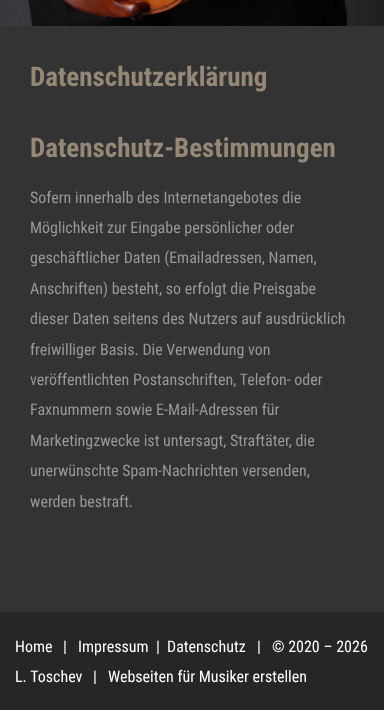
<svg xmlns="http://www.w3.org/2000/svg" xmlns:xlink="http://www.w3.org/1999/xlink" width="384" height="710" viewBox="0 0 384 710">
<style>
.cls-1{font:bold 27px Roboto Condensed;fill:#958877}
.cls-2{font:16px Roboto Condensed;fill:#999999}
.cls-3{font:16px Roboto Condensed;fill:#ffffff}
</style>
<rect width="100%" height="100%" fill="#333333"/>
<image xlink:href="image0.png" x="0" y="0" width="384" height="26"/>
<rect fill="#262626" x="0" y="612" width="384" height="98"/>
<text class="cls-1" x="30" y="86">Datenschutzerklärung</text>
<text class="cls-1" x="30" y="157">Datenschutz-Bestimmungen</text>
<text class="cls-2"><tspan x="30" y="203">Sofern innerhalb des Internetangebotes die</tspan><tspan x="30" y="233">Möglichkeit zur Eingabe persönlicher oder</tspan><tspan x="30" y="263">geschäftlicher Daten (Emailadressen, Namen,</tspan><tspan x="30" y="294">Anschriften) besteht, so erfolgt die Preisgabe</tspan><tspan x="30" y="324">dieser Daten seitens des Nutzers auf ausdrücklich</tspan><tspan x="30" y="355">freiwilliger Basis. Die Verwendung von</tspan><tspan x="30" y="385">veröffentlichten Postanschriften, Telefon- oder</tspan><tspan x="30" y="415">Faxnummern sowie E-Mail-Adressen für</tspan><tspan x="30" y="446">Marketingzwecke ist untersagt, Straftäter, die</tspan><tspan x="30" y="476">unerwünschte Spam-Nachrichten versenden,</tspan><tspan x="30" y="507">werden bestraft.</tspan></text>
<text class="cls-3" x="15" y="652">Home</text>
<text class="cls-3" x="63" y="652">|</text>
<text class="cls-3" x="78" y="652">Impressum</text>
<text class="cls-3" x="156" y="652">|</text>
<text class="cls-3" x="167" y="652">Datenschutz</text>
<text class="cls-3" xml:space="preserve" x="257" y="652">|   © 2020 – 2026</text>
<text class="cls-3" x="15" y="682">L. Toschev</text>
<text class="cls-3" x="93" y="682">|</text>
<text class="cls-3" x="108" y="682">Webseiten für Musiker erstellen</text>
</svg>
